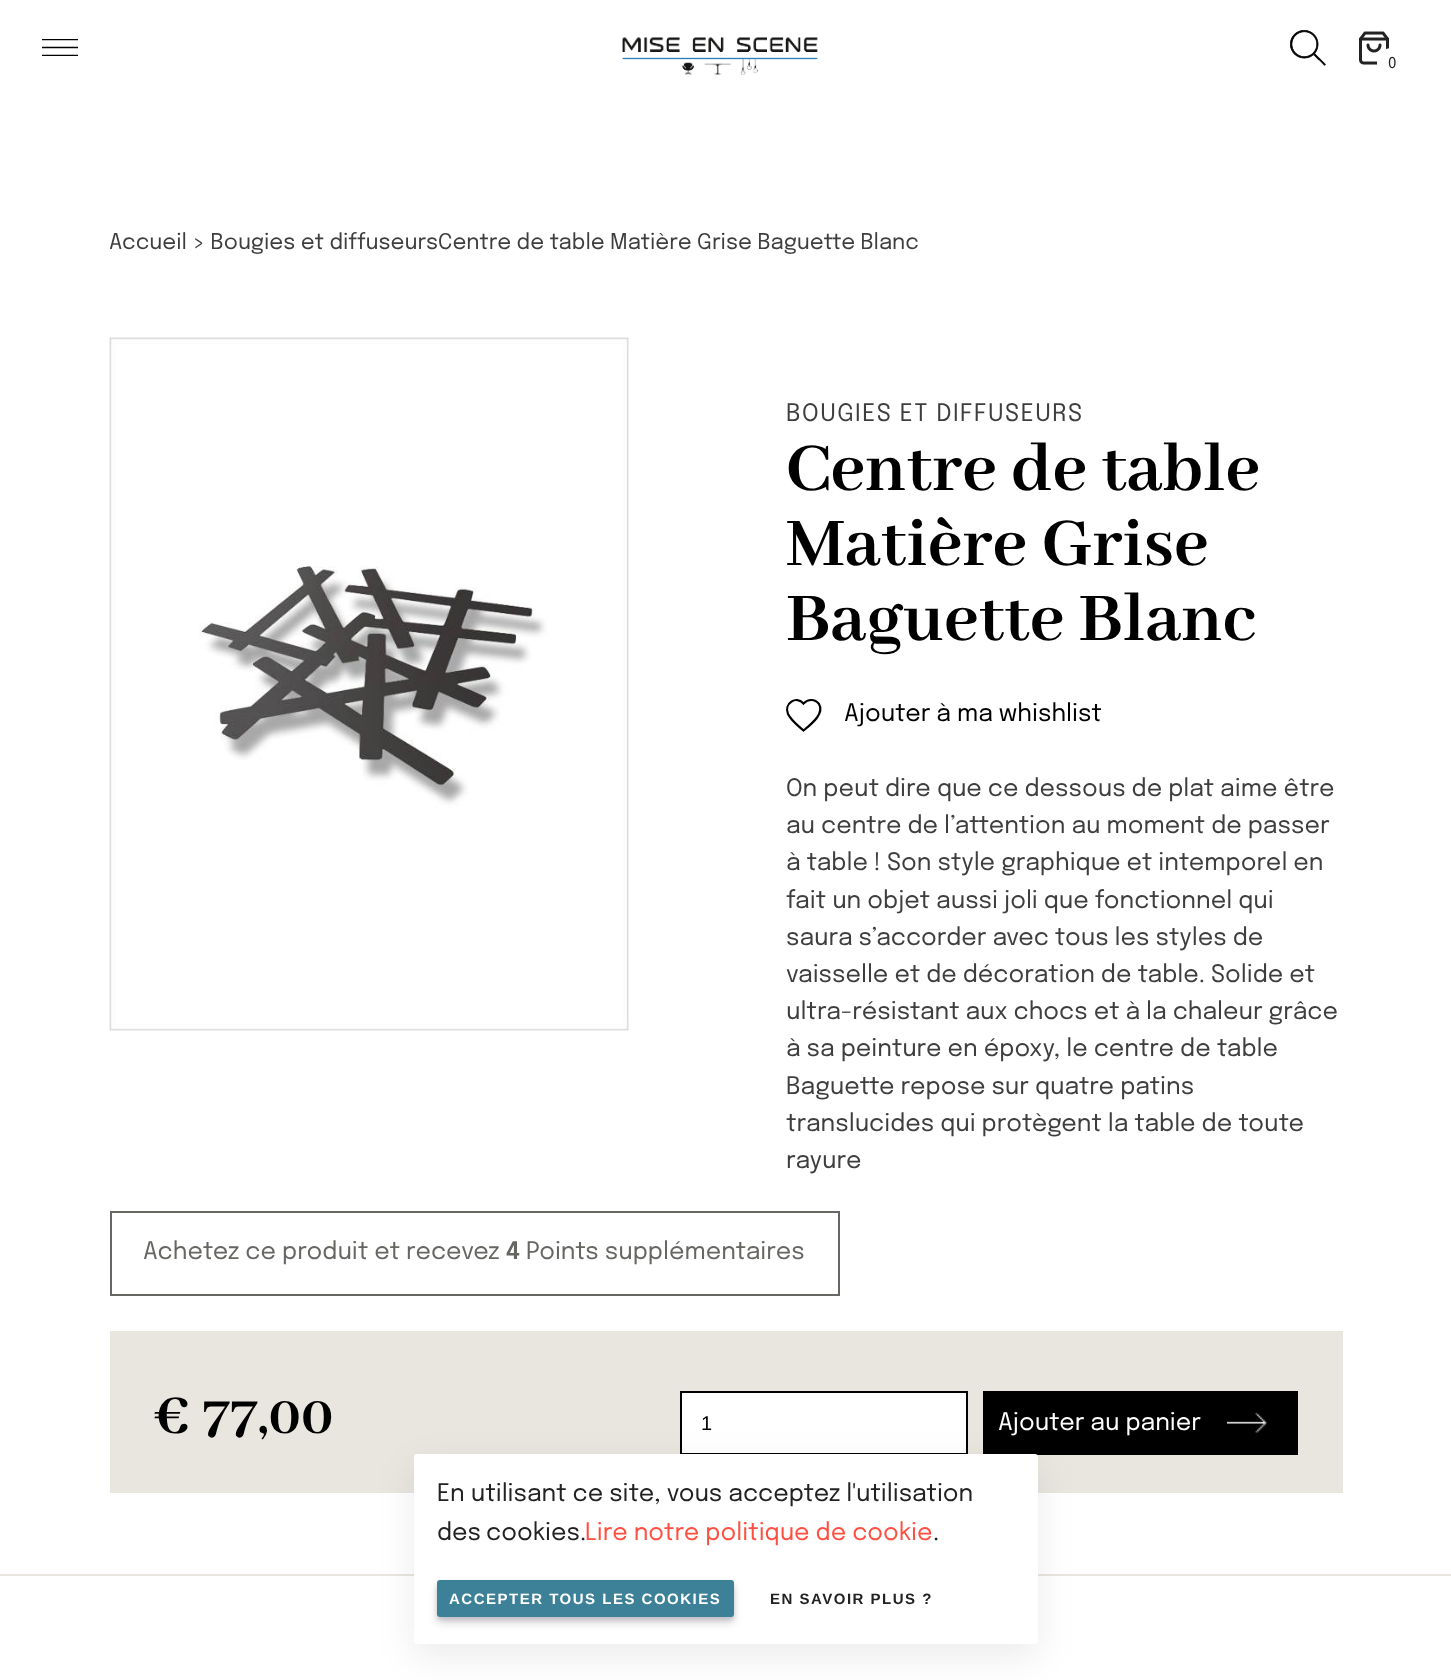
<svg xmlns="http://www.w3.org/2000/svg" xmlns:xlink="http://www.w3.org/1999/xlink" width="1451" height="1680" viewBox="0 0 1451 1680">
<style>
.cls-1{font:15px Epilogue;fill:#222222}
.cls-2{font:21.6px Epilogue;fill:#3e3e3e}
.cls-3{font:24px Epilogue;letter-spacing:1.5px;fill:#3e3e3e}
.cls-4{font:bold 75px Abhaya Libre;fill:#000000}
.cls-5{font:24px Epilogue;fill:#000000}
.cls-6{font:24px Epilogue;fill:#3e3e3e}
.cls-7{font:24px Epilogue;fill:#676662}
.cls-8{font:600 24px Epilogue;fill:#676662}
.cls-9{font:bold 60px Abhaya Libre;fill:#000000}
.cls-10{font:20px Liberation Sans;fill:#000000}
.cls-11{font:24px Epilogue;fill:#ffffff}
.cls-12{font:24px Epilogue;fill:#222222}
.cls-13{font:24px Epilogue;fill:#ff4f40}
.cls-14{font:bold 15px Liberation Sans;letter-spacing:1.5px;fill:#ffffff}
.cls-15{font:bold 15px Liberation Sans;letter-spacing:1.5px;fill:#222222}
</style>
<defs>
<clipPath id="clip1"><rect x="42" y="39" width="36" height="17"/></clipPath>
</defs>
<rect width="100%" height="100%" fill="#ffffff"/>
<g clip-path="url(#clip1)">
<path fill="none" stroke="#000000" stroke-width="1.5" d="M42 39.5H78"/>
</g>
<path fill="none" stroke="#000000" stroke-width="1.5" d="M42 47.5H78"/>
<g clip-path="url(#clip1)">
<path fill="none" stroke="#000000" stroke-width="1.5" d="M42 55.5H78"/>
</g>
<image xlink:href="image0.png" x="622" y="37" width="196" height="38"/>
<image xlink:href="image1.png" x="1290" y="30" width="36" height="36"/>
<image xlink:href="image2.png" x="1359" y="31" width="30" height="34"/>
<circle fill="#ffffff" cx="1392" cy="63" r="15"/>
<image xlink:href="image3.png" x="109" y="337" width="520" height="694"/>
<path fill="none" stroke="#000000" stroke-width="2.2" d="M811 700C808.5 700 805.5 701.5 803.5 703.5C796.5 695 783.5 703.5 788 714C791 720.5 798.5 726 803.5 730.5C810 725 825 714 819 704C817 701.5 814.5 700 811.5 700Z"/>
<rect fill="#e8e6df" x="110" y="1331" width="1233" height="162"/>
<rect fill="none" stroke="#676662" stroke-width="2" x="111" y="1212" width="728" height="83"/>
<rect fill="#ffffff" stroke="#000000" stroke-width="2" x="681" y="1392" width="286" height="62"/>
<rect fill="#000000" x="983" y="1391" width="315" height="64"/>
<image xlink:href="image4.png" x="1227" y="1413" width="41" height="20"/>
<rect fill="#e8e6df" x="0" y="1574" width="1451" height="2"/>
<rect fill="#000000" fill-opacity="0.08" filter="blur(18px)" x="414" y="1466" width="624" height="190" rx="3"/>
<rect fill="#ffffff" x="414" y="1454" width="624" height="190" rx="3"/>
<rect fill="#300d4f" fill-opacity="0.15" filter="blur(2px)" x="437" y="1583" width="297" height="37" rx="3"/>
<rect fill="#000000" fill-opacity="0.15" filter="blur(4.5px)" x="437" y="1586" width="297" height="37" rx="3"/>
<rect fill="#3d8199" x="437" y="1580" width="297" height="37" rx="3"/>
<text class="cls-1" x="1388" y="68">0</text>
<text class="cls-2" x="109" y="249">Accueil &gt; Bougies et diffuseursCentre de table Matière Grise Baguette Blanc</text>
<text class="cls-3" x="786" y="421">BOUGIES ET DIFFUSEURS</text>
<text class="cls-4"><tspan x="786" y="490">Centre de table</tspan><tspan x="786" y="565">Matière Grise</tspan><tspan x="786" y="640">Baguette Blanc</tspan></text>
<text class="cls-5" x="844" y="721">Ajouter à ma whishlist</text>
<text class="cls-6"><tspan x="786" y="796">On peut dire que ce dessous de plat aime être</tspan><tspan x="786" y="833">au centre de l’attention au moment de passer</tspan><tspan x="786" y="870">à table ! Son style graphique et intemporel en</tspan><tspan x="786" y="908">fait un objet aussi joli que fonctionnel qui</tspan><tspan x="786" y="945">saura s’accorder avec tous les styles de</tspan><tspan x="786" y="982">vaisselle et de décoration de table. Solide et</tspan><tspan x="786" y="1019">ultra-résistant aux chocs et à la chaleur grâce</tspan><tspan x="786" y="1056">à sa peinture en époxy, le centre de table</tspan><tspan x="786" y="1094">Baguette repose sur quatre patins</tspan><tspan x="786" y="1131">translucides qui protègent la table de toute</tspan><tspan x="786" y="1168">rayure</tspan></text>
<text class="cls-7" x="143" y="1259">Achetez ce produit et recevez</text>
<text class="cls-8" x="506" y="1259">4</text>
<text class="cls-7" x="526" y="1259">Points supplémentaires</text>
<text class="cls-9" x="154" y="1433">€</text>
<text class="cls-9" x="202" y="1433">77,00</text>
<text class="cls-10" x="701" y="1430">1</text>
<text class="cls-11" x="998" y="1430">Ajouter au panier</text>
<text class="cls-12"><tspan x="437" y="1501">En utilisant ce site, vous acceptez l'utilisation</tspan><tspan x="437" y="1540" word-spacing="-1">des cookies.</tspan></text>
<text class="cls-13" x="585" y="1540">Lire notre politique de cookie</text>
<text class="cls-12" x="933" y="1540">.</text>
<text class="cls-14" x="449" y="1604">ACCEPTER TOUS LES COOKIES</text>
<text class="cls-15" x="770" y="1604">EN SAVOIR PLUS ?</text>
</svg>
